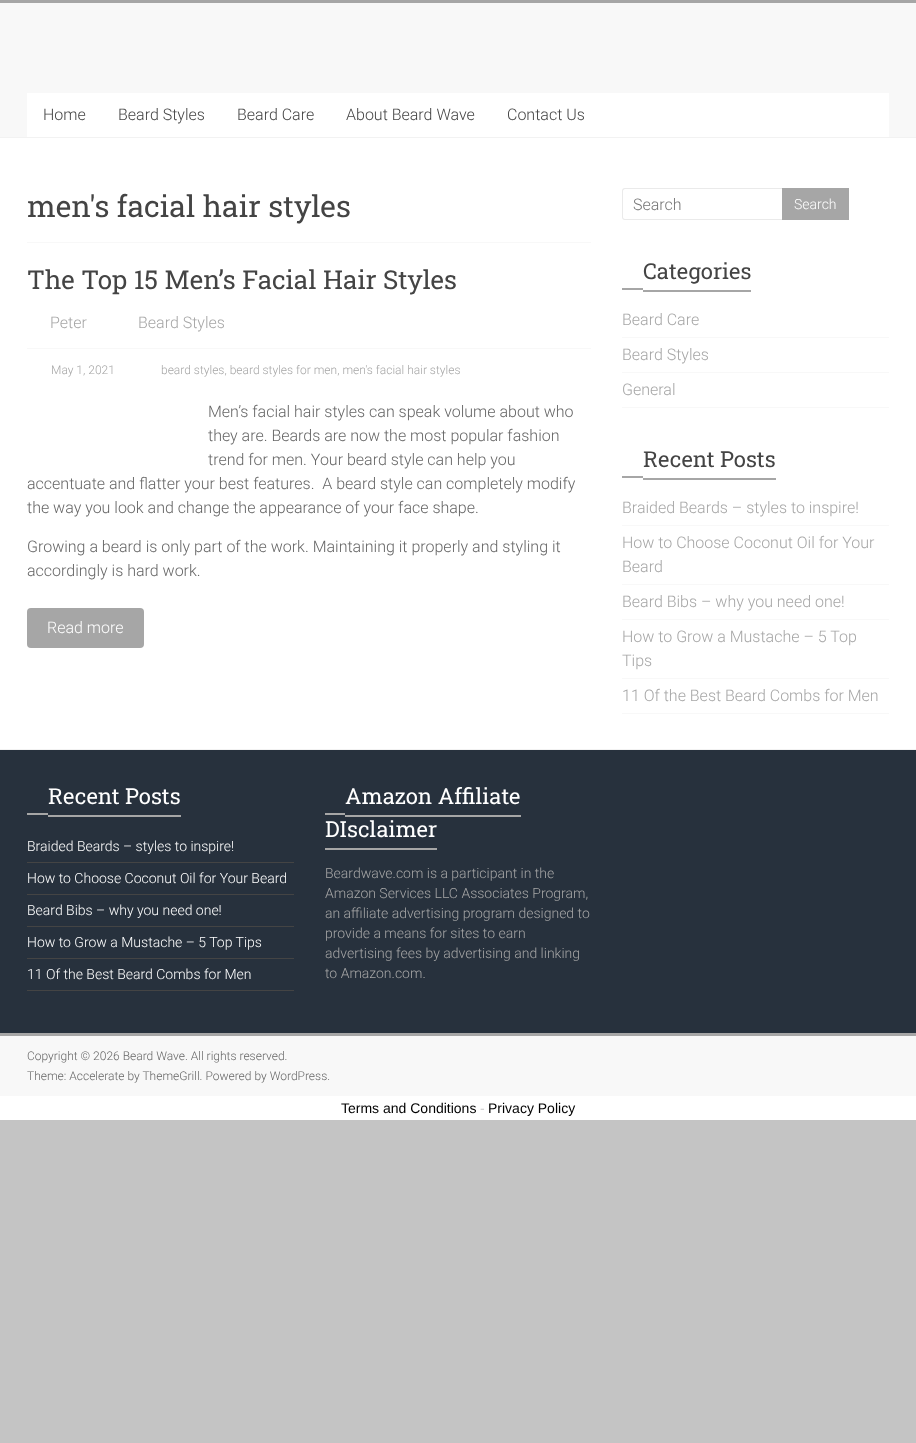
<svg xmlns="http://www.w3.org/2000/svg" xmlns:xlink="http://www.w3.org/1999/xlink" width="916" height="1443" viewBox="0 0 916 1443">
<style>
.cls-1{font:300 16px Roboto;fill:#444444}
.cls-2{font:30px Roboto Slab;fill:#444444}
.cls-3{font:26px Roboto Slab;fill:#444444}
.cls-4{font:300 16px Roboto;fill:#a6a6a6}
.cls-5{font:300 12px Roboto;fill:#a6a6a6}
.cls-6{font:300 16px Roboto;fill:#666666}
.cls-7{font:300 16px Roboto;fill:#ffffff}
.cls-8{font:300 16px Roboto;fill:#757575}
.cls-9{font:300 14px Roboto;fill:#ffffff}
.cls-10{font:22px Roboto Slab;fill:#444444}
.cls-11{font:22px Roboto Slab;fill:#ffffff}
.cls-12{font:300 14px Roboto;fill:#a6a6a6}
.cls-13{font:300 12px Roboto;fill:#666666}
.cls-14{font:14px Liberation Sans;fill:#000000}
.cls-15{font:14px Liberation Sans;fill:#cccccc}
</style>
<rect width="100%" height="100%" fill="#c4c4c4"/>
<rect fill="#ffffff" x="0" y="138" width="916" height="611"/>
<rect fill="#a6a6a6" x="0" y="0" width="916" height="3"/>
<rect fill="#f8f8f8" x="0" y="3" width="916" height="134"/>
<rect fill="#f2f2f2" x="0" y="137" width="916" height="1"/>
<rect fill="#ffffff" x="27" y="93" width="862" height="44"/>
<rect fill="#f8f8f8" x="27" y="242" width="564" height="1"/>
<rect fill="#f8f8f8" x="27" y="348" width="564" height="1"/>
<rect fill="#a6a6a6" x="27" y="608" width="117" height="40" rx="4"/>
<path fill="#eaeaea" fill-rule="evenodd" d="M625 188H782V220H625C623 220 622 219 622 217V191C622 189 623 188 625 188ZM625 189H782V219H625C624 219 623 218 623 217V191C623 190 624 189 625 189Z"/>
<rect fill="#a6a6a6" x="782" y="188" width="67" height="32"/>
<rect fill="#a6a6a6" x="622" y="288" width="21" height="2"/>
<rect fill="#a6a6a6" x="643" y="290" width="108" height="2"/>
<rect fill="#f8f8f8" x="622" y="337" width="267" height="1"/>
<rect fill="#f8f8f8" x="622" y="372" width="267" height="1"/>
<rect fill="#f8f8f8" x="622" y="407" width="267" height="1"/>
<rect fill="#a6a6a6" x="622" y="476" width="21" height="2"/>
<rect fill="#a6a6a6" x="643" y="478" width="133" height="2"/>
<rect fill="#f8f8f8" x="622" y="525" width="267" height="1"/>
<rect fill="#f8f8f8" x="622" y="584" width="267" height="1"/>
<rect fill="#f8f8f8" x="622" y="619" width="267" height="1"/>
<rect fill="#f8f8f8" x="622" y="678" width="267" height="1"/>
<rect fill="#f8f8f8" x="622" y="713" width="267" height="1"/>
<rect fill="#27313d" x="0" y="750" width="916" height="283"/>
<rect fill="#f2f2f2" x="0" y="749" width="916" height="1"/>
<rect fill="#a6a6a6" x="27" y="813" width="21" height="2"/>
<rect fill="#a6a6a6" x="48" y="815" width="133" height="2"/>
<rect fill="#444444" x="27" y="862" width="267" height="1"/>
<rect fill="#444444" x="27" y="894" width="267" height="1"/>
<rect fill="#444444" x="27" y="926" width="267" height="1"/>
<rect fill="#444444" x="27" y="958" width="267" height="1"/>
<rect fill="#444444" x="27" y="990" width="267" height="1"/>
<rect fill="#a6a6a6" x="325" y="813" width="20" height="2"/>
<rect fill="#a6a6a6" x="345" y="815" width="176" height="2"/>
<rect fill="#a6a6a6" x="325" y="848" width="112" height="2"/>
<rect fill="#f8f8f8" x="0" y="1036" width="916" height="60"/>
<rect fill="#a6a6a6" x="0" y="1033" width="916" height="3"/>
<rect fill="#ffffff" x="0" y="1096" width="916" height="24"/>
<text class="cls-1" x="43" y="120">Home</text>
<text class="cls-1" x="118" y="120">Beard Styles</text>
<text class="cls-1" x="237" y="120">Beard Care</text>
<text class="cls-1" x="346" y="120">About Beard Wave</text>
<text class="cls-1" x="507" y="120">Contact Us</text>
<text class="cls-2" x="27" y="217">men's facial hair styles</text>
<text class="cls-3" x="27" y="289">The Top 15 Men’s Facial Hair Styles</text>
<text class="cls-4" x="50" y="328">Peter</text>
<text class="cls-4" x="138" y="328">Beard Styles</text>
<text class="cls-5" x="51" y="374">May 1, 2021</text>
<text class="cls-5" x="161" y="374">beard styles, beard styles for men, men's facial hair styles</text>
<text class="cls-6"><tspan x="208" y="417">Men’s facial hair styles can speak volume about who</tspan><tspan x="208" y="441">they are. Beards are now the most popular fashion</tspan><tspan x="208" y="465">trend for men. Your beard style can help you</tspan></text>
<text class="cls-6" xml:space="preserve"><tspan x="27" y="489">accentuate and flatter your best features.  A beard style can completely modify</tspan><tspan x="27" y="513">the way you look and change the appearance of your face shape.</tspan></text>
<text class="cls-6"><tspan x="27" y="552">Growing a beard is only part of the work. Maintaining it properly and styling it</tspan><tspan x="27" y="576">accordingly is hard work.</tspan></text>
<text class="cls-7" x="47" y="633">Read more</text>
<text class="cls-8" x="633" y="210">Search</text>
<text class="cls-9" x="794" y="209">Search</text>
<text class="cls-10" x="643" y="279">Categories</text>
<text class="cls-4" x="622" y="325">Beard Care</text>
<text class="cls-4" x="622" y="360">Beard Styles</text>
<text class="cls-4" x="622" y="395">General</text>
<text class="cls-10" x="643" y="467">Recent Posts</text>
<text class="cls-4" x="622" y="513">Braided Beards – styles to inspire!</text>
<text class="cls-4"><tspan x="622" y="548">How to Choose Coconut Oil for Your</tspan><tspan x="622" y="572">Beard</tspan></text>
<text class="cls-4" x="622" y="607">Beard Bibs – why you need one!</text>
<text class="cls-4"><tspan x="622" y="642">How to Grow a Mustache – 5 Top</tspan><tspan x="622" y="666">Tips</tspan></text>
<text class="cls-4" x="622" y="701">11 Of the Best Beard Combs for Men</text>
<text class="cls-11" x="48" y="804">Recent Posts</text>
<text class="cls-9" x="27" y="851">Braided Beards – styles to inspire!</text>
<text class="cls-9" x="27" y="883">How to Choose Coconut Oil for Your Beard</text>
<text class="cls-9" x="27" y="915">Beard Bibs – why you need one!</text>
<text class="cls-9" x="27" y="947">How to Grow a Mustache – 5 Top Tips</text>
<text class="cls-9" x="27" y="979">11 Of the Best Beard Combs for Men</text>
<text class="cls-11" x="345" y="804">Amazon Affiliate</text>
<text class="cls-11" x="325" y="837">DIsclaimer</text>
<text class="cls-12"><tspan x="325" y="878">Beardwave.com is a participant in the</tspan><tspan x="325" y="898">Amazon Services LLC Associates Program,</tspan><tspan x="325" y="918">an affiliate advertising program designed to</tspan><tspan x="325" y="938">provide a means for sites to earn</tspan><tspan x="325" y="958">advertising fees by advertising and linking</tspan><tspan x="325" y="978">to Amazon.com.</tspan></text>
<text class="cls-13"><tspan x="27" y="1060">Copyright © 2026 Beard Wave. All rights reserved.</tspan><tspan x="27" y="1080">Theme: Accelerate by ThemeGrill. Powered by WordPress.</tspan></text>
<text class="cls-14" x="341" y="1113">Terms and Conditions</text>
<text class="cls-15" x="480" y="1113">-</text>
<text class="cls-14" x="488" y="1113">Privacy Policy</text>
</svg>
